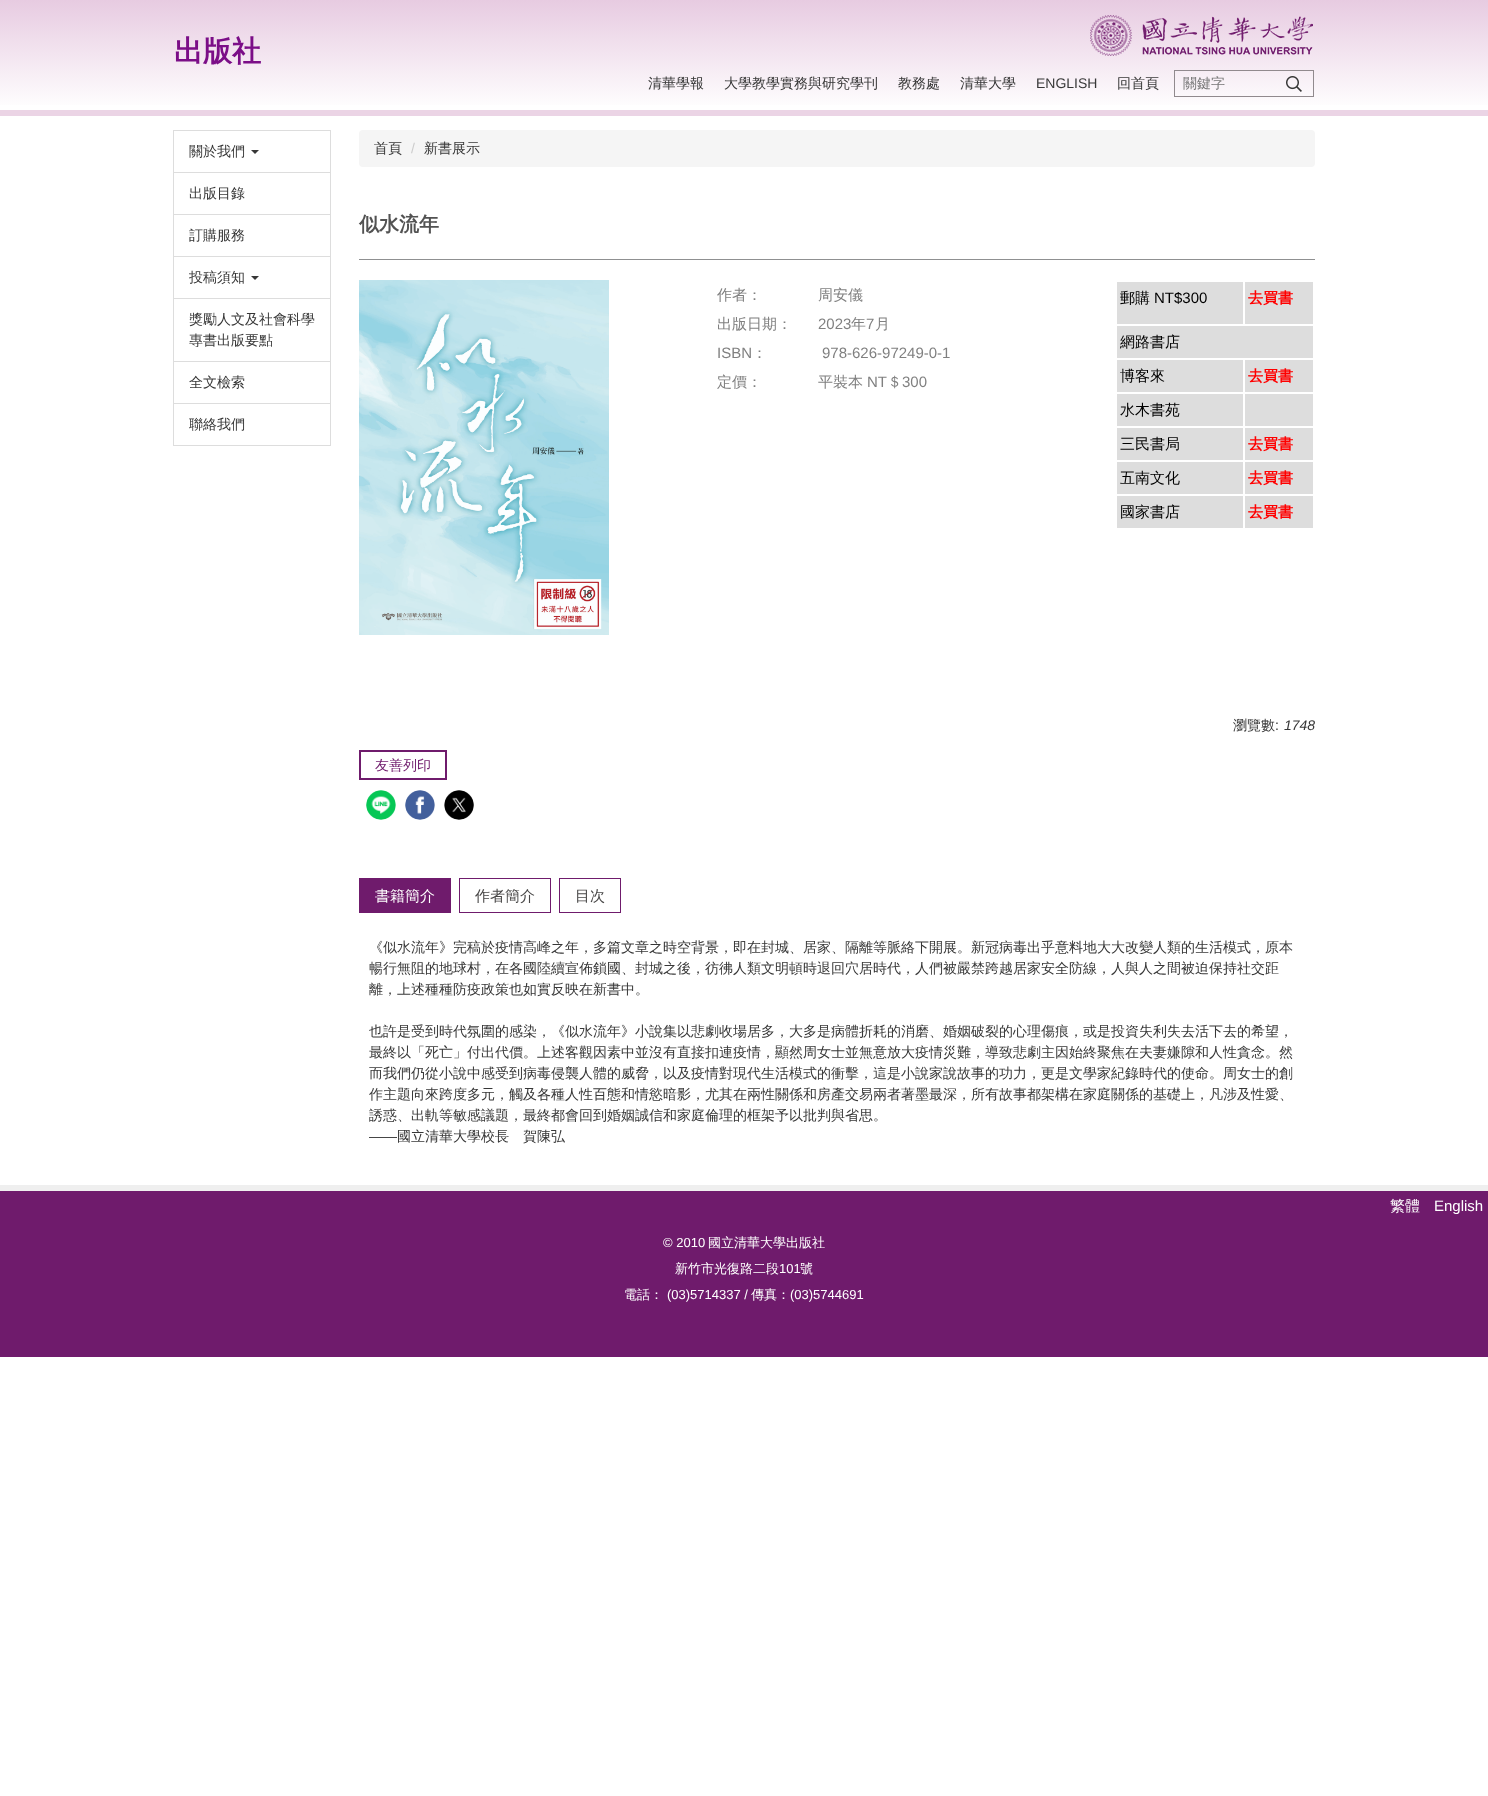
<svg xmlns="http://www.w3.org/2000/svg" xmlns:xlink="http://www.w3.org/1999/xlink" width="1488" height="1796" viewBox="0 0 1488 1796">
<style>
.cls-1{font:bold 29px WenQuanYi Zen Hei;fill:#7b0e87}
.cls-2{font:500 14px WenQuanYi Zen Hei;fill:#373737}
.cls-3{font:14px Liberation Sans;fill:#373737}
.cls-4{font:500 14px WenQuanYi Zen Hei;fill:#777777}
.cls-5{font:14px Liberation Sans;fill:#cccccc}
.cls-6{font:bold 20px WenQuanYi Zen Hei;fill:#525252}
.cls-7{font:500 15px WenQuanYi Zen Hei;fill:#808080}
.cls-8{font:15px Liberation Sans;fill:#808080}
.cls-9{font:500 15px WenQuanYi Zen Hei;fill:#000000}
.cls-10{font:15px Liberation Sans;fill:#000000}
.cls-11{font:bold 15px WenQuanYi Zen Hei;fill:#ff0000}
.cls-12{font:italic 14px Liberation Sans;fill:#373737}
.cls-13{font:500 14px WenQuanYi Zen Hei;fill:#6f1b6c}
.cls-14{font:500 15px WenQuanYi Zen Hei;fill:#ffffff}
.cls-15{font:500 15px WenQuanYi Zen Hei;fill:#484747}
.cls-16{font:15px Liberation Sans;fill:#ffffff}
.cls-17{font:13px Liberation Sans;fill:#ffffff}
.cls-18{font:500 13px WenQuanYi Zen Hei;fill:#ffffff}
</style>
<defs>
<linearGradient id="g1" gradientUnits="userSpaceOnUse" x1="744" y1="0" x2="744" y2="110"><stop offset="0" stop-color="#e7cbe1"/><stop offset="1" stop-color="#ffffff"/></linearGradient>
</defs>
<rect width="100%" height="100%" fill="#ffffff"/>
<rect fill="url(#g1)" x="0" y="0" width="1488" height="105"/>
<image xlink:href="image0.png" x="1090" y="15" width="223" height="41"/>
<rect fill="#ebd4e5" x="0" y="110" width="1488" height="6"/>
<rect fill="none" stroke="#918a8e" x="1174.5" y="70.5" width="139" height="26"/>
<image xlink:href="image1.png" x="1286" y="76" width="16" height="16"/>
<rect fill="none" stroke="#dddddd" x="173.5" y="130.5" width="157" height="42"/>
<path fill="#373737" d="M251 150H259L255 154Z"/>
<rect fill="none" stroke="#dddddd" x="173.5" y="172.5" width="157" height="42"/>
<rect fill="none" stroke="#dddddd" x="173.5" y="214.5" width="157" height="42"/>
<rect fill="none" stroke="#dddddd" x="173.5" y="256.5" width="157" height="42"/>
<path fill="#373737" d="M251 276H259L255 280Z"/>
<rect fill="none" stroke="#dddddd" x="173.5" y="298.5" width="157" height="63"/>
<rect fill="none" stroke="#dddddd" x="173.5" y="361.5" width="157" height="42"/>
<rect fill="none" stroke="#dddddd" x="173.5" y="403.5" width="157" height="42"/>
<rect fill="#f5f5f5" x="359" y="130" width="956" height="37" rx="4"/>
<rect fill="#8f9091" x="359" y="259" width="956" height="1"/>
<image xlink:href="image2.png" x="359" y="280" width="250" height="355"/>
<rect fill="#dddddd" x="1117" y="282" width="126" height="42"/>
<rect fill="#dddddd" x="1245" y="282" width="68" height="42"/>
<rect fill="#dddddd" x="1117" y="326" width="196" height="32"/>
<rect fill="#dddddd" x="1117" y="360" width="126" height="32"/>
<rect fill="#dddddd" x="1245" y="360" width="68" height="32"/>
<rect fill="#dddddd" x="1117" y="394" width="126" height="32"/>
<rect fill="#dddddd" x="1245" y="394" width="68" height="32"/>
<rect fill="#dddddd" x="1117" y="428" width="126" height="32"/>
<rect fill="#dddddd" x="1245" y="428" width="68" height="32"/>
<rect fill="#dddddd" x="1117" y="462" width="126" height="32"/>
<rect fill="#dddddd" x="1245" y="462" width="68" height="32"/>
<rect fill="#dddddd" x="1117" y="496" width="126" height="32"/>
<rect fill="#dddddd" x="1245" y="496" width="68" height="32"/>
<rect fill="none" stroke="#6f1b6c" stroke-width="2" x="360" y="751" width="86" height="28"/>
<image xlink:href="image3.png" x="366" y="790" width="30" height="30"/>
<image xlink:href="image4.png" x="405" y="790" width="30" height="30"/>
<image xlink:href="image5.png" x="444" y="790" width="30" height="30"/>
<rect fill="#6f1b6c" x="359" y="878" width="92" height="35"/>
<rect fill="none" stroke="#6f1b6c" x="459.5" y="878.5" width="91" height="34"/>
<rect fill="none" stroke="#6f1b6c" x="559.5" y="878.5" width="61" height="34"/>
<rect fill="#6f1b6c" x="0" y="1191" width="1488" height="166"/>
<rect fill="#efefef" x="0" y="1185" width="1488" height="6"/>
<text class="cls-1" x="174" y="61">出版社</text>
<text class="cls-2" x="648" y="88">清華學報</text>
<text class="cls-2" x="724" y="88">大學教學實務與研究學刊</text>
<text class="cls-2" x="898" y="88">教務處</text>
<text class="cls-2" x="960" y="88">清華大學</text>
<text class="cls-3" x="1036" y="88">ENGLISH</text>
<text class="cls-2" x="1117" y="88">回首頁</text>
<text class="cls-4" x="1183" y="88">關鍵字</text>
<text class="cls-2" x="189" y="156">關於我們</text>
<text class="cls-2" x="189" y="198">出版目錄</text>
<text class="cls-2" x="189" y="240">訂購服務</text>
<text class="cls-2" x="189" y="282">投稿須知</text>
<text class="cls-2"><tspan x="189" y="324">獎勵人文及社會科學</tspan><tspan x="189" y="345">專書出版要點</tspan></text>
<text class="cls-2" x="189" y="387">全文檢索</text>
<text class="cls-2" x="189" y="429">聯絡我們</text>
<text class="cls-2" x="374" y="153">首頁</text>
<text class="cls-5" x="411" y="153">/</text>
<text class="cls-2" x="424" y="153">新書展示</text>
<text class="cls-6" x="359" y="231">似水流年</text>
<text class="cls-7" x="717" y="300">作者：</text>
<text class="cls-7" x="818" y="300">周安儀</text>
<text class="cls-7" x="717" y="329">出版日期：</text>
<text class="cls-8" x="818" y="329">2023</text>
<text class="cls-7" x="851" y="329">年</text>
<text class="cls-8" x="866" y="329">7</text>
<text class="cls-7" x="875" y="329">月</text>
<text class="cls-8" x="717" y="358">ISBN</text>
<text class="cls-7" x="752" y="358">：</text>
<text class="cls-8" x="822" y="358">978-626-97249-0-1</text>
<text class="cls-7" x="717" y="387">定價：</text>
<text class="cls-7" x="818" y="387">平裝本</text>
<text class="cls-8" x="867" y="387">NT</text>
<text class="cls-7" x="887" y="387">＄</text>
<text class="cls-8" x="902" y="387">300</text>
<text class="cls-9" x="1120" y="303">郵購</text>
<text class="cls-10" x="1154" y="303">NT$300</text>
<text class="cls-11" x="1248" y="303">去買書</text>
<text class="cls-9" x="1120" y="347">網路書店</text>
<text class="cls-9" x="1120" y="381">博客來</text>
<text class="cls-11" x="1248" y="381">去買書</text>
<text class="cls-9" x="1120" y="415">水木書苑</text>
<text class="cls-9" x="1120" y="449">三民書局</text>
<text class="cls-11" x="1248" y="449">去買書</text>
<text class="cls-9" x="1120" y="483">五南文化</text>
<text class="cls-11" x="1248" y="483">去買書</text>
<text class="cls-9" x="1120" y="517">國家書店</text>
<text class="cls-11" x="1248" y="517">去買書</text>
<text class="cls-2" x="1233" y="730">瀏覽數</text>
<text class="cls-3" x="1275" y="730">:</text>
<text class="cls-12" x="1284" y="730">1748</text>
<text class="cls-13" x="375" y="770">友善列印</text>
<text class="cls-14" x="375" y="901">書籍簡介</text>
<text class="cls-15" x="475" y="901">作者簡介</text>
<text class="cls-15" x="575" y="901">目次</text>
<text class="cls-2"><tspan x="369" y="952">《似水流年》完稿於疫情高峰之年，多篇文章之時空背景，即在封城、居家、隔離等脈絡下開展。新冠病毒出乎意料地大大改變人類的生活模式，原本</tspan><tspan x="369" y="973">暢行無阻的地球村，在各國陸續宣佈鎖國、封城之後，彷彿人類文明頓時退回穴居時代，人們被嚴禁跨越居家安全防線，人與人之間被迫保持社交距</tspan><tspan x="369" y="994">離，上述種種防疫政策也如實反映在新書中。</tspan></text>
<text class="cls-2"><tspan x="369" y="1036">也許是受到時代氛圍的感染，《似水流年》小說集以悲劇收場居多，大多是病體折耗的消磨、婚姻破裂的心理傷痕，或是投資失利失去活下去的希望，</tspan><tspan x="369" y="1057">最終以「死亡」付出代價。上述客觀因素中並沒有直接扣連疫情，顯然周女士並無意放大疫情災難，導致悲劇主因始終聚焦在夫妻嫌隙和人性貪念。然</tspan><tspan x="369" y="1078">而我們仍從小說中感受到病毒侵襲人體的威脅，以及疫情對現代生活模式的衝擊，這是小說家說故事的功力，更是文學家紀錄時代的使命。周女士的創</tspan><tspan x="369" y="1099">作主題向來跨度多元，觸及各種人性百態和情慾暗影，尤其在兩性關係和房產交易兩者著墨最深，所有故事都架構在家庭關係的基礎上，凡涉及性愛、</tspan><tspan x="369" y="1120">誘惑、出軌等敏感議題，最終都會回到婚姻誠信和家庭倫理的框架予以批判與省思。</tspan></text>
<text class="cls-3" x="369" y="1141">——</text>
<text class="cls-2" x="397" y="1141">國立清華大學校長　賀陳弘</text>
<text class="cls-14" x="1390" y="1211">繁體</text>
<text class="cls-16" x="1434" y="1211">English</text>
<text class="cls-17" x="663" y="1247">© 2010</text>
<text class="cls-18" x="708" y="1247">國立清華大學出版社</text>
<text class="cls-18" x="675" y="1273">新竹市光復路二段</text>
<text class="cls-17" x="779" y="1273">101</text>
<text class="cls-18" x="800" y="1273">號</text>
<text class="cls-18" x="624" y="1299">電話：</text>
<text class="cls-17" x="667" y="1299">(03)5714337 /</text>
<text class="cls-18" x="751" y="1299">傳真：</text>
<text class="cls-17" x="790" y="1299">(03)5744691</text>
</svg>
